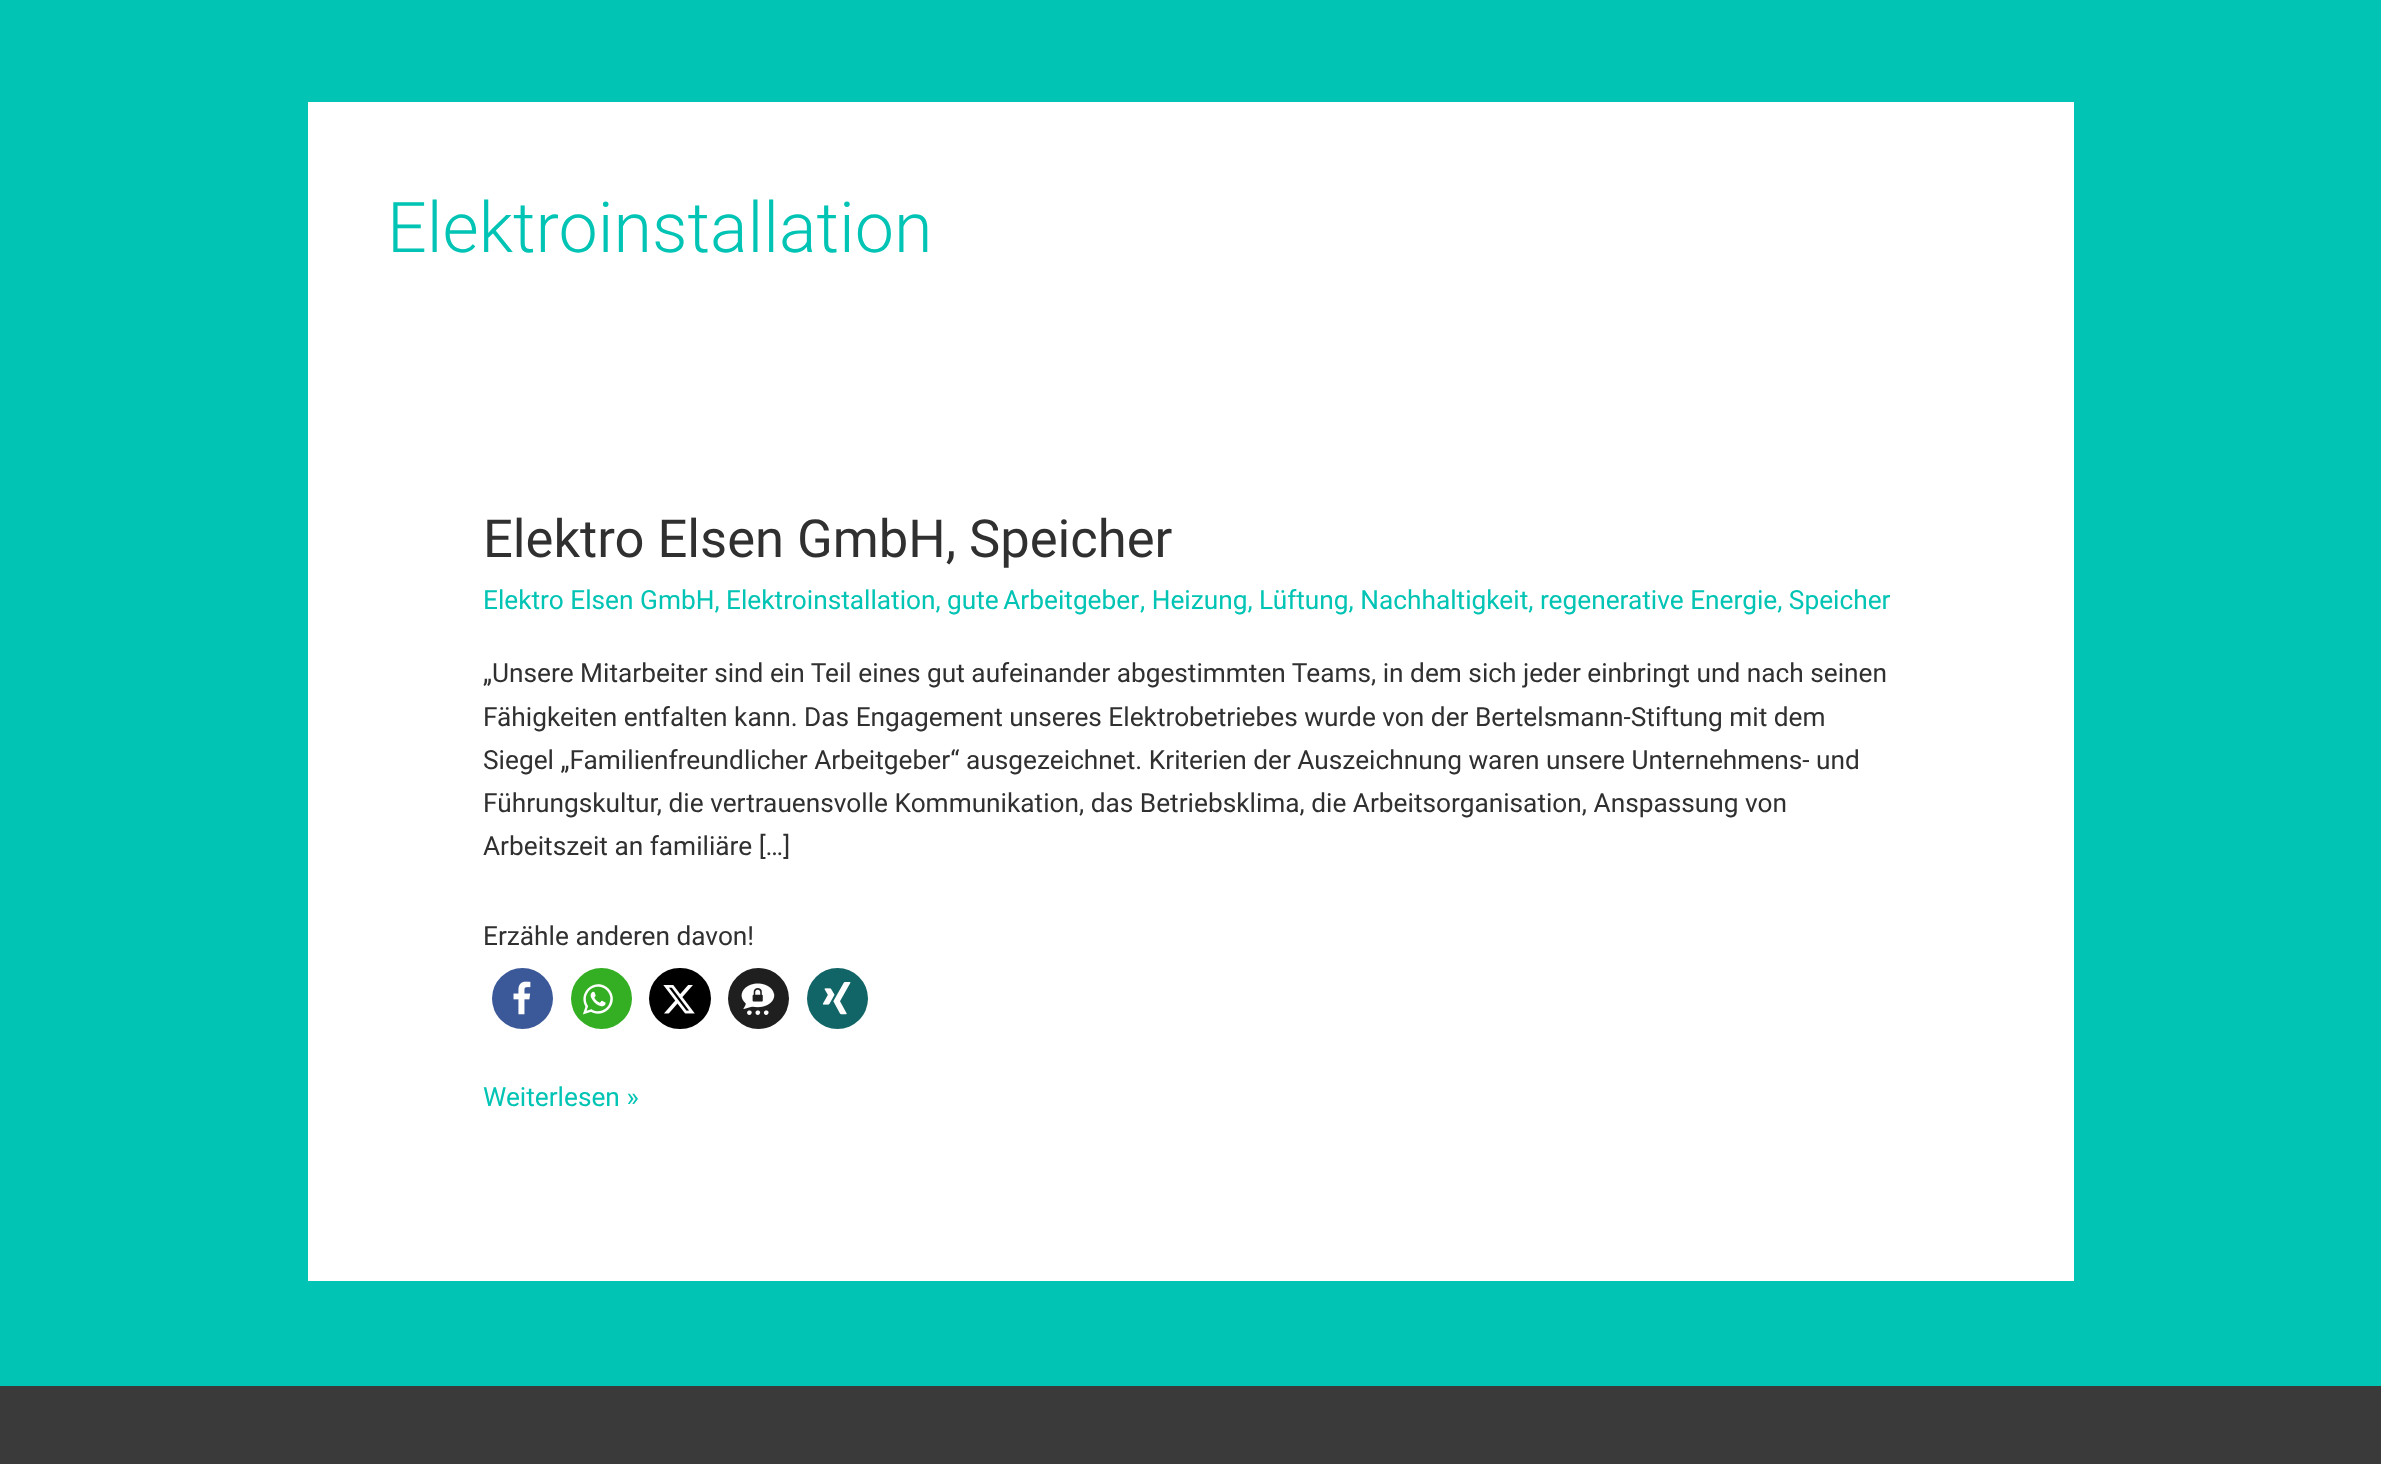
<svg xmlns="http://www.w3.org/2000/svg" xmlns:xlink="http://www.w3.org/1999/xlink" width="2381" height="1464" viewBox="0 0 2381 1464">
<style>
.cls-1{font:300 70px Roboto;fill:#01c4b4}
.cls-2{font:52.5px Roboto;fill:#303030}
.cls-3{font:26.25px Roboto;fill:#01c4b4}
.cls-4{font:26.25px Roboto;fill:#303030}
</style>
<rect width="100%" height="100%" fill="#01c4b4"/>
<rect fill="#ffffff" x="308" y="102" width="1766" height="1179"/>
<circle fill="#3b5998" cx="522.5" cy="998.5" r="30.5"/>
<image xlink:href="image0.png" x="513" y="981" width="18" height="34"/>
<circle fill="#34af23" cx="601.5" cy="998.5" r="30.5"/>
<image xlink:href="image1.png" x="582" y="984" width="31" height="31"/>
<rect fill="#000000" x="649" y="968" width="62" height="61" rx="30.5"/>
<image xlink:href="image2.png" x="663" y="985" width="32" height="29"/>
<circle fill="#1f1f1f" cx="758.5" cy="998.5" r="30.5"/>
<image xlink:href="image3.png" x="741" y="983" width="34" height="32"/>
<circle fill="#126567" cx="837.5" cy="998.5" r="30.5"/>
<image xlink:href="image4.png" x="822" y="982" width="29" height="33"/>
<rect fill="#3a3a3a" x="0" y="1386" width="2381" height="78"/>
<text class="cls-1" x="387" y="252">Elektroinstallation</text>
<text class="cls-2" x="483" y="557">Elektro Elsen GmbH, Speicher</text>
<text class="cls-3" x="483" y="609">Elektro Elsen GmbH, Elektroinstallation,</text>
<text class="cls-3" x="947" y="609" word-spacing="-2">gute Arbeitgeber</text>
<text class="cls-3" x="1140" y="609">, Heizung, Lüftung, Nachhaltigkeit, regenerative Energie, Speicher</text>
<text class="cls-4"><tspan x="483" y="682">„Unsere Mitarbeiter sind ein Teil eines gut aufeinander abgestimmten Teams, in dem sich jeder einbringt und nach seinen</tspan><tspan x="483" y="726">Fähigkeiten entfalten kann. Das Engagement unseres Elektrobetriebes wurde von der Bertelsmann-Stiftung mit dem</tspan><tspan x="483" y="769">Siegel „Familienfreundlicher Arbeitgeber“ ausgezeichnet. Kriterien der Auszeichnung waren unsere Unternehmens- und</tspan><tspan x="483" y="812">Führungskultur, die vertrauensvolle Kommunikation, das Betriebsklima, die Arbeitsorganisation, Anspassung von</tspan><tspan x="483" y="855">Arbeitszeit an familiäre […]</tspan></text>
<text class="cls-4" x="483" y="945">Erzähle anderen davon!</text>
<text class="cls-3" x="483" y="1106">Weiterlesen »</text>
</svg>
